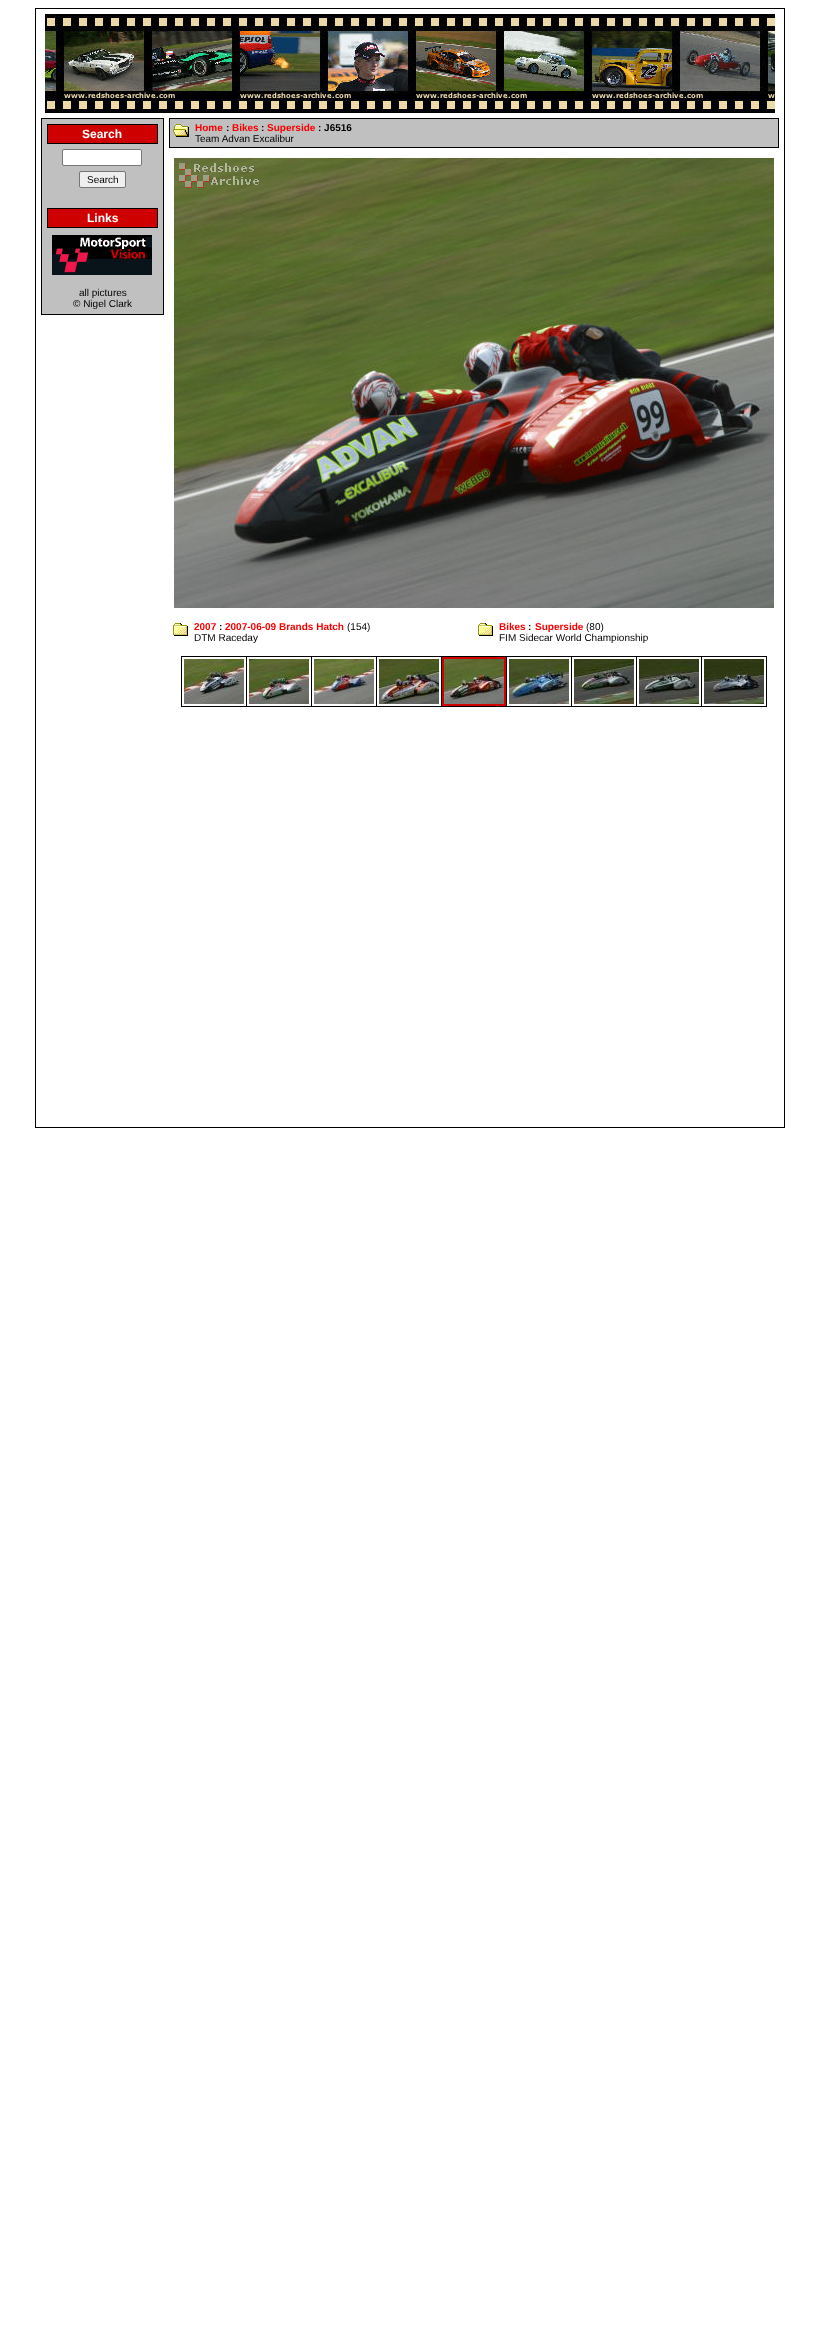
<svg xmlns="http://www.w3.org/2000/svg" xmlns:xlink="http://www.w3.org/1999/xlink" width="820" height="2330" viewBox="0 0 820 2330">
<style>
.cls-1{font:bold 12px Liberation Sans;fill:#ffffff}
.cls-2{font:10px Liberation Sans;fill:#000000}
.cls-3{font:bold 10px Liberation Sans;fill:#f70000}
.cls-4{font:bold 10px Liberation Sans;fill:#000000}
</style>
<rect width="100%" height="100%" fill="#ffffff"/>
<rect fill="#000000" x="35" y="8" width="750" height="1120"/>
<rect fill="#ffffff" x="36" y="9" width="748" height="1118"/>
<image xlink:href="image0.png" x="45" y="14" width="18" height="99"/>
<image xlink:href="image1.png" x="63" y="14" width="176" height="99"/>
<image xlink:href="image2.png" x="239" y="14" width="176" height="99"/>
<image xlink:href="image3.png" x="415" y="14" width="176" height="99"/>
<image xlink:href="image4.png" x="591" y="14" width="176" height="99"/>
<image xlink:href="image5.png" x="767" y="14" width="8" height="99"/>
<rect fill="#000000" x="41" y="118" width="123" height="197"/>
<rect fill="#c0c0c0" x="42" y="119" width="121" height="195"/>
<rect fill="#000000" x="47" y="124" width="111" height="20"/>
<rect fill="#ce0000" x="48" y="125" width="109" height="18"/>
<rect fill="#ffffff" stroke="#767676" x="62.5" y="149.5" width="79" height="16" rx="1.5"/>
<rect fill="#efefef" stroke="#767676" x="79.5" y="171.5" width="46" height="16" rx="1.5"/>
<rect fill="#000000" x="47" y="208" width="111" height="20"/>
<rect fill="#ce0000" x="48" y="209" width="109" height="18"/>
<image xlink:href="image6.png" x="52" y="235" width="100" height="40"/>
<rect fill="#000000" x="169" y="118" width="610" height="30"/>
<rect fill="#c0c0c0" x="170" y="119" width="608" height="28"/>
<image xlink:href="image7.png" x="173" y="124" width="16" height="13"/>
<image xlink:href="image8.png" x="174" y="158" width="600" height="450"/>
<image xlink:href="image9.png" x="173" y="623" width="15" height="13"/>
<image xlink:href="image9.png" x="478" y="623" width="15" height="13"/>
<rect fill="#000000" x="181" y="656" width="586" height="51"/>
<rect fill="#ffffff" x="182" y="657" width="64" height="49"/>
<image xlink:href="image10.png" x="184" y="659" width="60" height="45"/>
<rect fill="#ffffff" x="247" y="657" width="64" height="49"/>
<image xlink:href="image11.png" x="249" y="659" width="60" height="45"/>
<rect fill="#ffffff" x="312" y="657" width="64" height="49"/>
<image xlink:href="image12.png" x="314" y="659" width="60" height="45"/>
<rect fill="#ffffff" x="377" y="657" width="64" height="49"/>
<image xlink:href="image13.png" x="379" y="659" width="60" height="45"/>
<rect fill="#ce0000" x="442" y="657" width="64" height="49"/>
<image xlink:href="image14.png" x="444" y="659" width="60" height="45"/>
<rect fill="#ffffff" x="507" y="657" width="64" height="49"/>
<image xlink:href="image15.png" x="509" y="659" width="60" height="45"/>
<rect fill="#ffffff" x="572" y="657" width="64" height="49"/>
<image xlink:href="image16.png" x="574" y="659" width="60" height="45"/>
<rect fill="#ffffff" x="637" y="657" width="64" height="49"/>
<image xlink:href="image17.png" x="639" y="659" width="60" height="45"/>
<rect fill="#ffffff" x="702" y="657" width="64" height="49"/>
<image xlink:href="image18.png" x="704" y="659" width="60" height="45"/>
<text class="cls-1" x="82" y="138">Search</text>
<text class="cls-2" x="87" y="183">Search</text>
<text class="cls-1" x="87" y="222">Links</text>
<text class="cls-2" x="79" y="296">all pictures</text>
<text class="cls-2" x="73" y="307">© Nigel Clark</text>
<text class="cls-3" x="195" y="131">Home</text>
<text class="cls-4" x="226" y="131">:</text>
<text class="cls-3" x="232" y="131">Bikes</text>
<text class="cls-4" x="261" y="131">:</text>
<text class="cls-3" x="267" y="131">Superside</text>
<text class="cls-4" x="318" y="131">: J6516</text>
<text class="cls-2" x="195" y="142">Team Advan Excalibur</text>
<text class="cls-3" x="194" y="630">2007</text>
<text class="cls-4" x="219" y="630">:</text>
<text class="cls-3" x="225" y="630">2007-06-09 Brands Hatch</text>
<text class="cls-2" x="347" y="630">(154)</text>
<text class="cls-2" x="194" y="641">DTM Raceday</text>
<text class="cls-3" x="499" y="630">Bikes</text>
<text class="cls-4" x="528" y="630">:</text>
<text class="cls-3" x="535" y="630">Superside</text>
<text class="cls-2" x="586" y="630">(80)</text>
<text class="cls-2" x="499" y="641">FIM Sidecar World Championship</text>
</svg>
